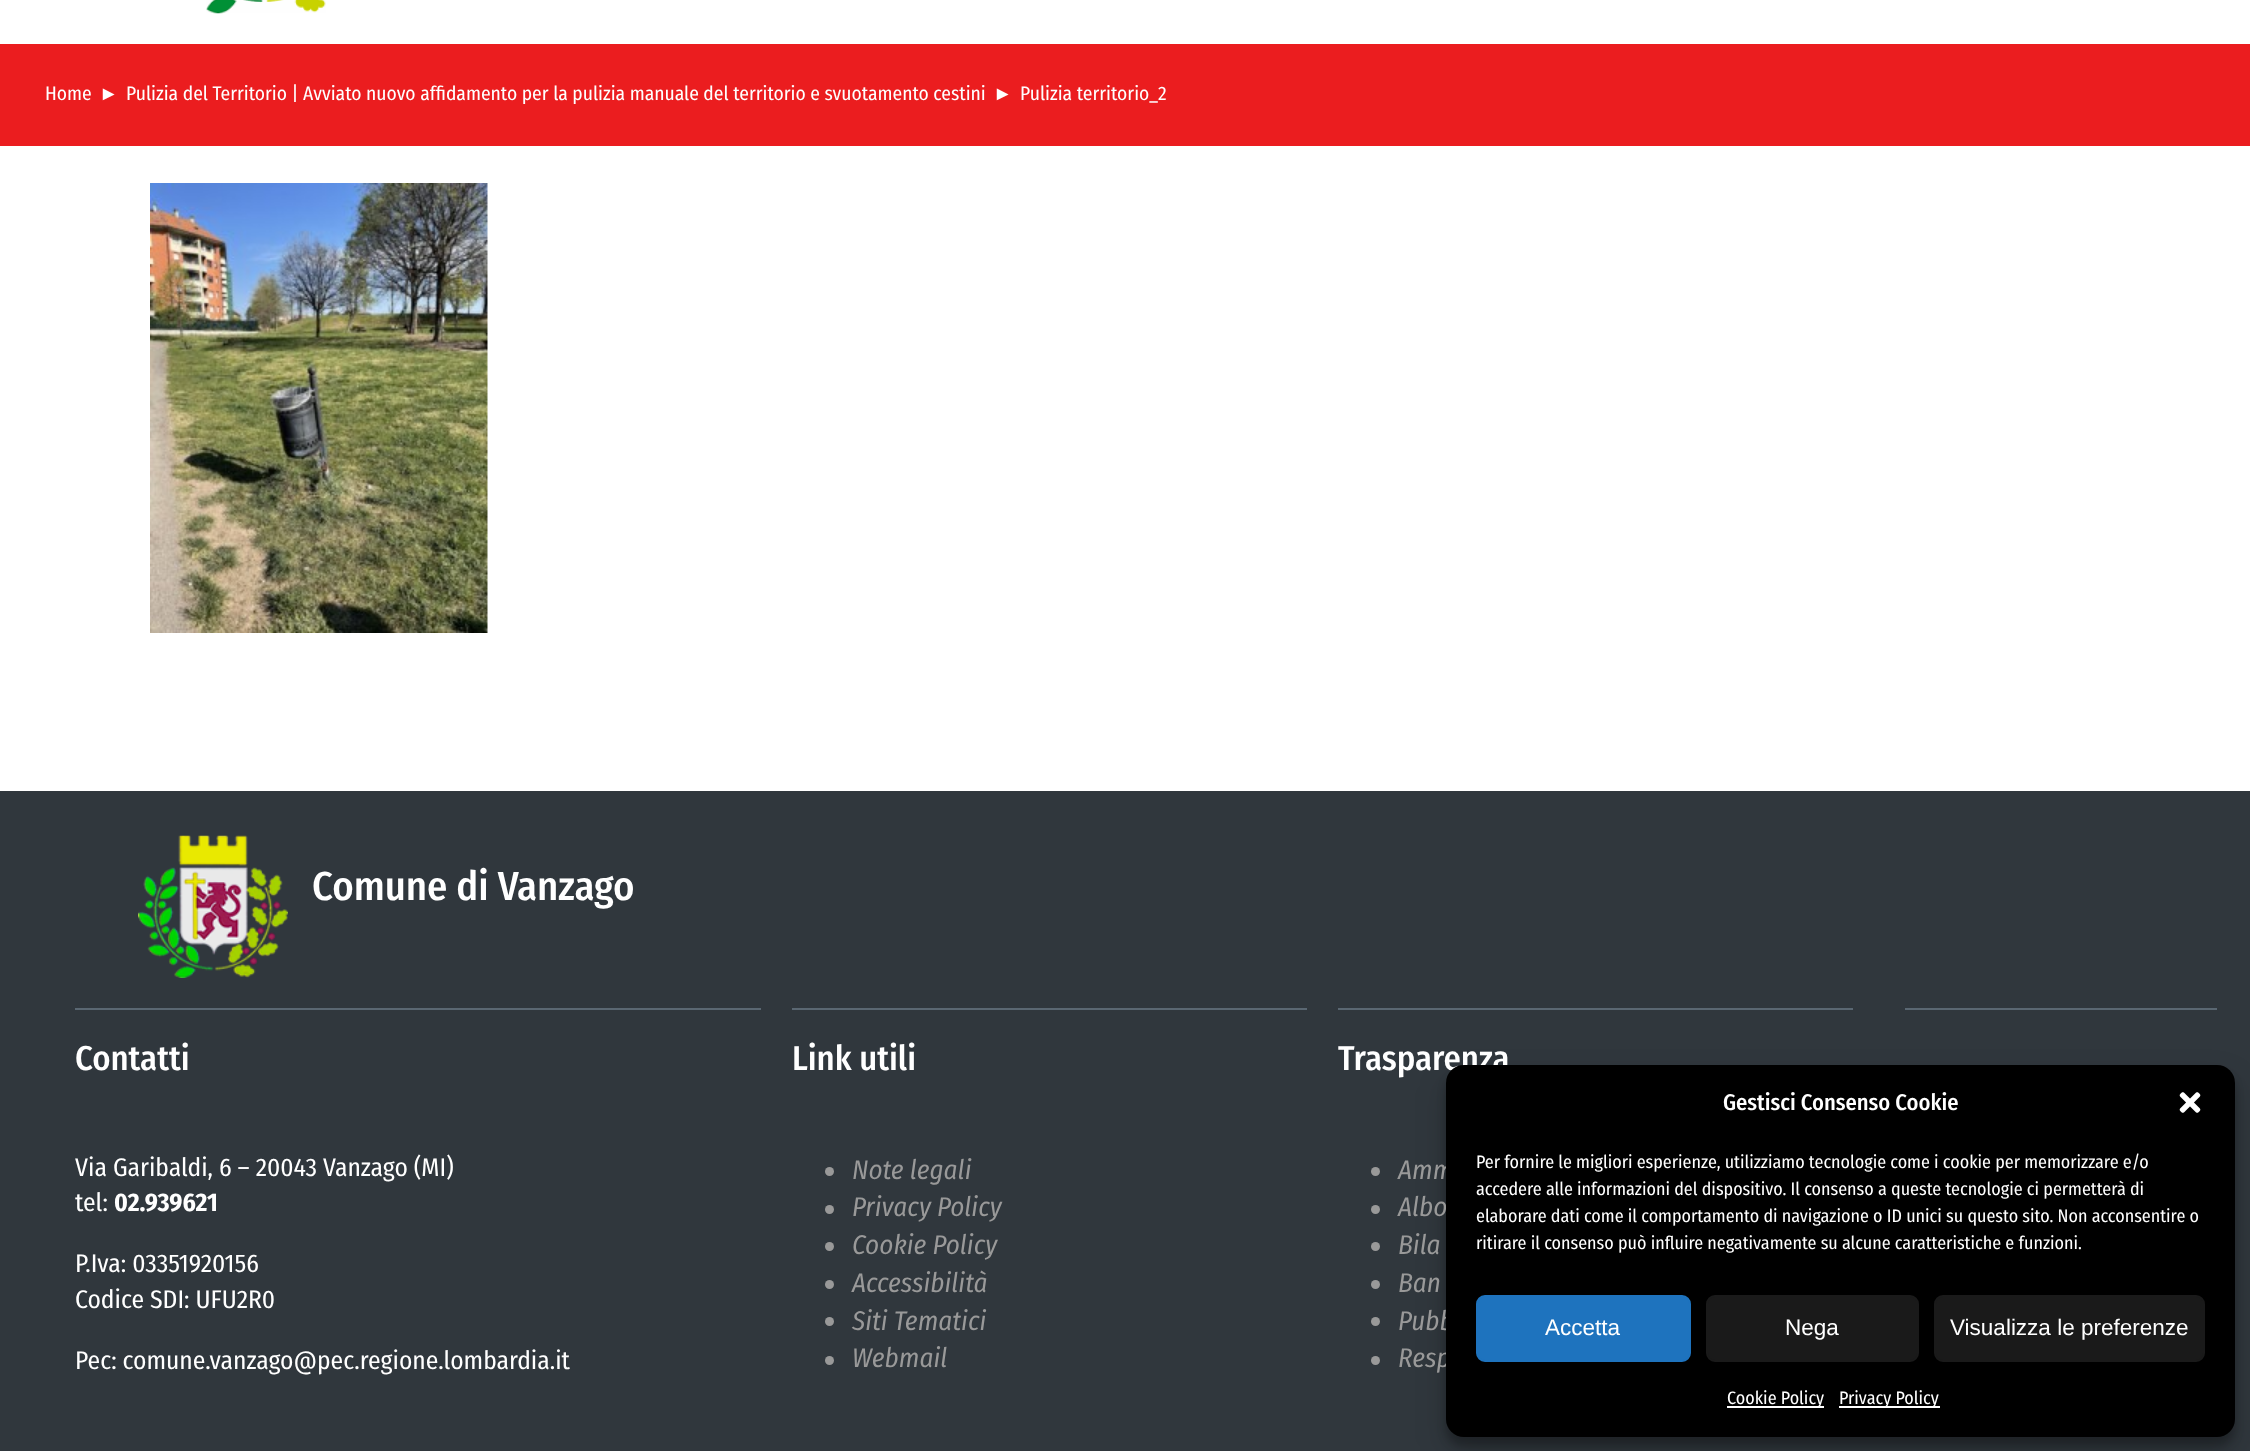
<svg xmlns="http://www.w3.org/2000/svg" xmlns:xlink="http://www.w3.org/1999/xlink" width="2250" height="1451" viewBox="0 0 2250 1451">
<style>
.cls-1{font:19.5px Fira Sans Condensed;fill:#ffffff}
.cls-2{font:19.5px Liberation Sans;fill:#ffffff}
.cls-3{font:500 40.5px Fira Sans Condensed;fill:#ffffff}
.cls-4{font:500 34.5px Fira Sans Condensed;fill:#ffffff}
.cls-5{font:25.5px Fira Sans Condensed;fill:#ffffff}
.cls-6{font:bold 25.5px Fira Sans Condensed;fill:#ffffff}
.cls-7{font:italic 27px Fira Sans Condensed;fill:#999999}
.cls-8{font:500 22.5px Fira Sans Condensed;fill:#ffffff}
.cls-9{font:18px Fira Sans Condensed;fill:#ffffff}
.cls-10{font:22.5px Liberation Sans;fill:#ffffff}
</style>
<rect width="100%" height="100%" fill="#ffffff"/>
<image xlink:href="image0.png" x="206" y="0" width="120" height="14"/>
<rect fill="#eb1d1f" x="0" y="44" width="2250" height="102"/>
<image xlink:href="image1.png" x="150" y="183" width="338" height="450"/>
<rect fill="#30373d" x="0" y="791" width="2250" height="660"/>
<image xlink:href="image2.png" x="138" y="835" width="150" height="143"/>
<rect fill="#5a6772" x="1905" y="1008" width="312" height="2"/>
<rect fill="#5a6772" x="75" y="1008" width="686" height="2"/>
<rect fill="#5a6772" x="792" y="1008" width="515" height="2"/>
<circle fill="#999999" cx="829.5" cy="1171.5" r="4.5"/>
<circle fill="#999999" cx="829.5" cy="1209.5" r="4.5"/>
<circle fill="#999999" cx="829.5" cy="1246.5" r="4.5"/>
<circle fill="#999999" cx="829.5" cy="1284.5" r="4.5"/>
<circle fill="#999999" cx="829.5" cy="1321.5" r="4.5"/>
<circle fill="#999999" cx="829.5" cy="1360.5" r="4.5"/>
<rect fill="#5a6772" x="1338" y="1008" width="515" height="2"/>
<circle fill="#999999" cx="1375.5" cy="1171.5" r="4.5"/>
<circle fill="#999999" cx="1375.5" cy="1209.5" r="4.5"/>
<circle fill="#999999" cx="1375.5" cy="1246.5" r="4.5"/>
<circle fill="#999999" cx="1375.5" cy="1284.5" r="4.5"/>
<circle fill="#999999" cx="1375.5" cy="1321.5" r="4.5"/>
<circle fill="#999999" cx="1375.5" cy="1360.5" r="4.5"/>
<rect fill="#000000" fill-opacity="0.23" filter="blur(4.5px)" x="1446" y="1074" width="789" height="372" rx="18"/>
<rect fill="#000000" fill-opacity="0.19" filter="blur(15px)" x="1446" y="1080" width="789" height="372" rx="18"/>
<text class="cls-1" x="45" y="100">Home</text>
<text class="cls-2" x="99" y="100">►</text>
<text class="cls-1" x="126" y="100">Pulizia del Territorio | Avviato nuovo affidamento per la pulizia manuale del territorio e svuotamento cestini</text>
<text class="cls-2" x="993" y="100">►</text>
<text class="cls-1" x="1020" y="100">Pulizia territorio_2</text>
<text class="cls-3" x="312" y="900">Comune di Vanzago</text>
<text class="cls-4" x="75" y="1070">Contatti</text>
<text class="cls-5"><tspan x="75" y="1176">Via Garibaldi, 6 – 20043 Vanzago (MI)</tspan><tspan x="75" y="1211">tel:</tspan></text>
<text class="cls-6" x="114" y="1211">02.939621</text>
<text class="cls-5"><tspan x="75" y="1272">P.Iva: 03351920156</tspan><tspan x="75" y="1308">Codice SDI: UFU2R0</tspan></text>
<text class="cls-5" x="75" y="1369">Pec: comune.vanzago@pec.regione.lombardia.it</text>
<text class="cls-4" x="792" y="1070">Link utili</text>
<text class="cls-7"><tspan x="852" y="1179">Note legali</tspan><tspan x="852" y="1216">Privacy Policy</tspan><tspan x="852" y="1254">Cookie Policy</tspan><tspan x="852" y="1292">Accessibilità</tspan><tspan x="852" y="1330">Siti Tematici</tspan><tspan x="852" y="1367">Webmail</tspan></text>
<text class="cls-4" x="1338" y="1070">Trasparenza</text>
<text class="cls-7"><tspan x="1398" y="1179">Amm</tspan><tspan x="1398" y="1216">Albo</tspan><tspan x="1398" y="1254">Bila</tspan><tspan x="1398" y="1292">Ban</tspan><tspan x="1398" y="1330">Pubb</tspan><tspan x="1398" y="1367">Resp</tspan></text>
<rect fill="#000000" x="1446" y="1065" width="789" height="372" rx="18"/>
<text class="cls-8" x="1723" y="1110">Gestisci Consenso Cookie</text>
<image xlink:href="image3.png" x="2179" y="1092" width="22" height="21"/>
<text class="cls-9"><tspan x="1476" y="1168">Per fornire le migliori esperienze, utilizziamo tecnologie come i cookie per memorizzare e/o</tspan><tspan x="1476" y="1195">accedere alle informazioni del dispositivo. Il consenso a queste tecnologie ci permetterà di</tspan><tspan x="1476" y="1222">elaborare dati come il comportamento di navigazione o ID unici su questo sito. Non acconsentire o</tspan><tspan x="1476" y="1249">ritirare il consenso può influire negativamente su alcune caratteristiche e funzioni.</tspan></text>
<rect fill="#1e73be" stroke="#1e73be" stroke-width="2" x="1477" y="1296" width="213" height="65" rx="8"/>
<text class="cls-10" x="1545" y="1335">Accetta</text>
<rect fill="#1a1a1a" stroke="#1a1a1a" stroke-width="2" x="1707" y="1296" width="211" height="65" rx="8"/>
<text class="cls-10" x="1785" y="1335">Nega</text>
<rect fill="#1a1a1a" stroke="#1a1a1a" stroke-width="2" x="1935" y="1296" width="269" height="65" rx="8"/>
<text class="cls-10" x="1950" y="1335">Visualizza le preferenze</text>
<rect fill="#ffffff" x="1727" y="1406" width="97" height="2"/>
<text class="cls-9" x="1727" y="1404">Cookie Policy</text>
<rect fill="#ffffff" x="1839" y="1406" width="101" height="2"/>
<text class="cls-9" x="1839" y="1404">Privacy Policy</text>
</svg>
